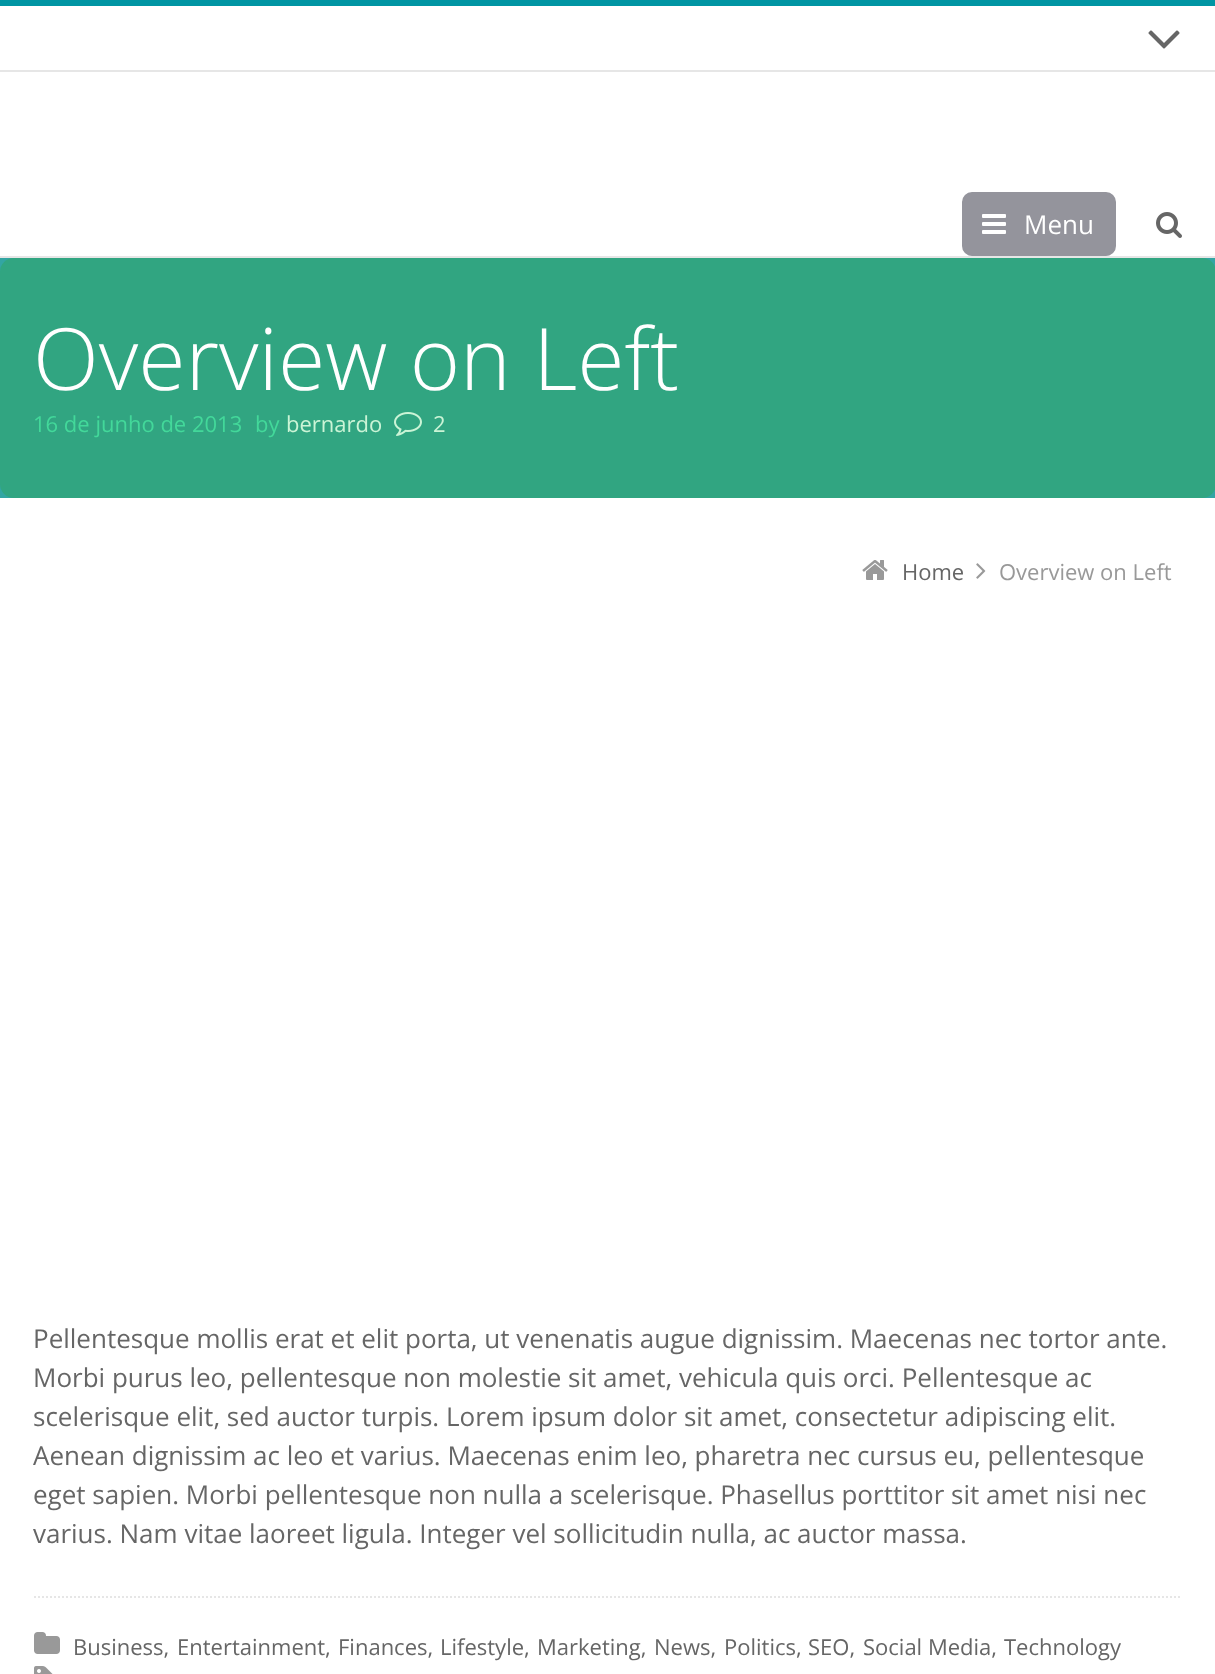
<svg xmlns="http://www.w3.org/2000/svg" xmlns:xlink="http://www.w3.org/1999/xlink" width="1215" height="1674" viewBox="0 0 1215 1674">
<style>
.cls-1{font:26px Open Sans;fill:#ffffff}
.cls-2{font:300 86px Open Sans;fill:#ffffff}
.cls-3{font:22px Open Sans;fill:#43d89a}
.cls-4{font:22px Open Sans;fill:#cbf4d6}
.cls-5{font:22px Open Sans;fill:#666666}
.cls-6{font:22px Open Sans;fill:#999999}
.cls-7{font:26px Open Sans;fill:#666666}
</style>
<rect width="100%" height="100%" fill="#ffffff"/>
<rect fill="#0095a3" x="0" y="0" width="1215" height="6"/>
<rect fill="#e6e6e6" x="0" y="70" width="1215" height="2"/>
<image xlink:href="image0.png" x="1148" y="30" width="32" height="19"/>
<rect fill="#94949c" stroke="#94949c" stroke-width="2" x="963" y="193" width="152" height="62" rx="9"/>
<image xlink:href="image1.png" x="982" y="214" width="24" height="20"/>
<image xlink:href="image2.png" x="1156" y="212" width="26" height="26"/>
<rect fill="#e6e6e6" x="0" y="256" width="1215" height="2"/>
<rect fill="#33a5a3" x="0" y="258" width="1215" height="240"/>
<rect fill="#31a581" x="0" y="258" width="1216" height="240" rx="14"/>
<image xlink:href="image3.png" x="394" y="412" width="28" height="24"/>
<image xlink:href="image4.png" x="862" y="560" width="26" height="20"/>
<image xlink:href="image5.png" x="976" y="563" width="10" height="16"/>
<path fill="none" stroke="#e6e6e6" stroke-width="2" stroke-dasharray="2 2" d="M34 1597H1182"/>
<image xlink:href="image6.png" x="34" y="1632" width="26" height="22"/>
<image xlink:href="image7.png" x="34" y="1666" width="19" height="8"/>
<text class="cls-1" x="1024" y="234">Menu</text>
<text class="cls-2" x="33" y="390">Overview on Left</text>
<text class="cls-3" x="33" y="432">16 de junho de 2013</text>
<text class="cls-3" x="255" y="432">by</text>
<text class="cls-4" x="286" y="432">bernardo</text>
<text class="cls-4" x="433" y="432">2</text>
<text class="cls-5" x="902" y="580">Home</text>
<text class="cls-6" x="999" y="580">Overview on Left</text>
<text class="cls-7"><tspan x="33" y="1348">Pellentesque mollis erat et elit porta, ut venenatis augue dignissim. Maecenas nec tortor ante.</tspan><tspan x="33" y="1387">Morbi purus leo, pellentesque non molestie sit amet, vehicula quis orci. Pellentesque ac</tspan><tspan x="33" y="1426">scelerisque elit, sed auctor turpis. Lorem ipsum dolor sit amet, consectetur adipiscing elit.</tspan><tspan x="33" y="1465">Aenean dignissim ac leo et varius. Maecenas enim leo, pharetra nec cursus eu, pellentesque</tspan><tspan x="33" y="1504">eget sapien. Morbi pellentesque non nulla a scelerisque. Phasellus porttitor sit amet nisi nec</tspan><tspan x="33" y="1543">varius. Nam vitae laoreet ligula. Integer vel sollicitudin nulla, ac auctor massa.</tspan></text>
<text class="cls-5" x="73" y="1655">Business,</text>
<text class="cls-5" x="177" y="1655">Entertainment,</text>
<text class="cls-5" x="338" y="1655">Finances,</text>
<text class="cls-5" x="440" y="1655">Lifestyle,</text>
<text class="cls-5" x="537" y="1655">Marketing,</text>
<text class="cls-5" x="654" y="1655">News,</text>
<text class="cls-5" x="724" y="1655">Politics,</text>
<text class="cls-5" x="808" y="1655">SEO,</text>
<text class="cls-5" x="863" y="1655">Social Media,</text>
<text class="cls-5" x="1004" y="1655">Technology</text>
</svg>
